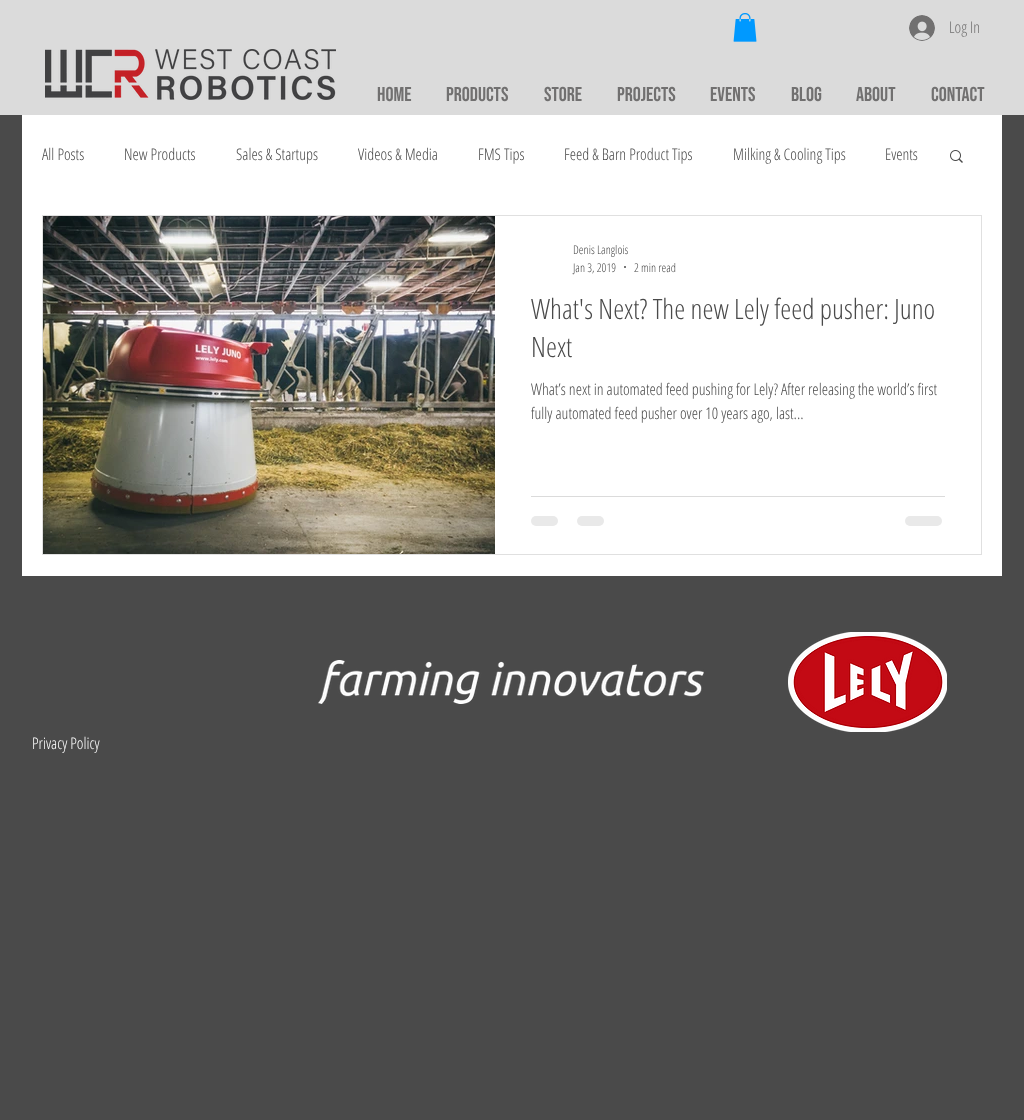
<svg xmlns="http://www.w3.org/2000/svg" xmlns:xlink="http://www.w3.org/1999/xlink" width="1024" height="1120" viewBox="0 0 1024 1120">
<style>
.cls-1{font:300 16px Open Sans Condensed;fill:#717070}
.cls-2{font:20px Bebas Neue;fill:#717070}
.cls-3{font:300 16px Open Sans Condensed;fill:#4a4a4a}
.cls-4{font:300 12px Open Sans Condensed;fill:#4a4a4a}
.cls-5{font:300 28px Open Sans Condensed;fill:#4a4a4a}
.cls-6{font:300 16px Open Sans Condensed;fill:#ffffff}
</style>
<rect width="100%" height="100%" fill="#4a4a4a"/>
<rect fill="#dbdbdb" x="0" y="0" width="1024" height="115"/>
<image xlink:href="image0.png" x="733" y="13" width="24" height="29"/>
<image xlink:href="image1.png" x="909" y="15" width="26" height="26"/>
<image xlink:href="image2.png" x="45" y="49" width="291" height="51"/>
<rect fill="#ffffff" x="22" y="115" width="980" height="461"/>
<image xlink:href="image3.png" x="950" y="150" width="13" height="13"/>
<rect fill="none" stroke="#e0e0e0" x="42.5" y="215.5" width="939" height="339"/>
<image xlink:href="image4.png" x="43" y="216" width="452" height="338"/>
<circle fill="#4a4a4a" cx="625" cy="267" r="1"/>
<rect fill="#dbdbdb" x="531" y="496" width="414" height="1"/>
<rect fill="#e9e9e9" x="531" y="516" width="27" height="10" rx="5"/>
<rect fill="#e9e9e9" x="577" y="516" width="27" height="10" rx="5"/>
<rect fill="#e9e9e9" x="905" y="516" width="37" height="10" rx="5"/>
<image xlink:href="image5.png" x="318" y="660" width="386" height="44"/>
<image xlink:href="image6.png" x="788" y="632" width="159" height="100"/>
<text class="cls-1" x="949" y="33">Log In</text>
<text class="cls-2" x="377" y="101">Home</text>
<text class="cls-2" x="446" y="101">Products</text>
<text class="cls-2" x="544" y="101">Store</text>
<text class="cls-2" x="617" y="101">Projects</text>
<text class="cls-2" x="710" y="101">Events</text>
<text class="cls-2" x="791" y="101">Blog</text>
<text class="cls-2" x="856" y="101">About</text>
<text class="cls-2" x="931" y="101">Contact</text>
<text class="cls-3" x="42" y="160">All Posts</text>
<text class="cls-3" x="124" y="160">New Products</text>
<text class="cls-3" x="236" y="160">Sales &amp; Startups</text>
<text class="cls-3" x="358" y="160">Videos &amp; Media</text>
<text class="cls-3" x="478" y="160">FMS Tips</text>
<text class="cls-3" x="564" y="160">Feed &amp; Barn Product Tips</text>
<text class="cls-3" x="733" y="160">Milking &amp; Cooling Tips</text>
<text class="cls-3" x="885" y="160">Events</text>
<text class="cls-4"><tspan x="573" y="254">Denis Langlois</tspan><tspan x="573" y="272">Jan 3, 2019</tspan></text>
<text class="cls-4" x="634" y="272">2 min read</text>
<text class="cls-5"><tspan x="531" y="319">What's Next? The new Lely feed pusher: Juno</tspan><tspan x="531" y="357">Next</tspan></text>
<text class="cls-3"><tspan x="531" y="395">What’s next in automated feed pushing for Lely? After releasing the world’s first</tspan><tspan x="531" y="419">fully automated feed pusher over 10 years ago, last...</tspan></text>
<text class="cls-6" x="32" y="749">Privacy Policy</text>
</svg>
